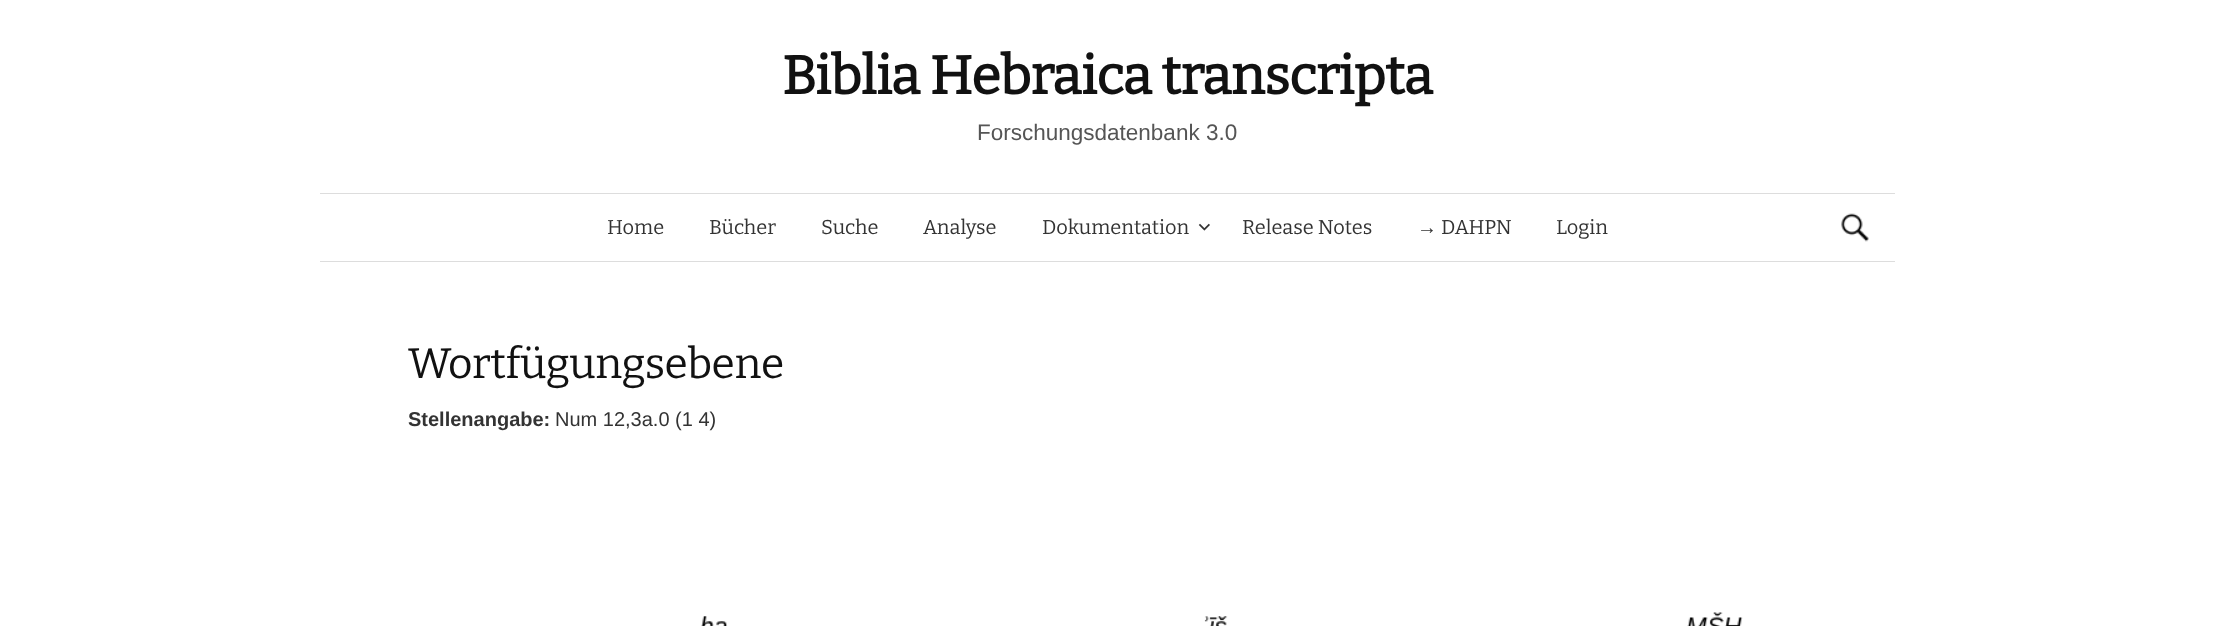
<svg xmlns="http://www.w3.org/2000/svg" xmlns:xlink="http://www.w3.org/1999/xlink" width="2214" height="626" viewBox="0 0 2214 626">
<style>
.cls-1{font:bold 53.75px Bitter;letter-spacing:-0.55px;fill:#111111}
.cls-2{font:22.5px Liberation Sans;fill:#555555}
.cls-3{font:100 20px Bitter;fill:#333333}
.cls-4{font:20px Liberation Serif;fill:#333333}
.cls-5{font:100 42.5px Bitter;letter-spacing:-0.4px;fill:#111111}
.cls-6{font:bold 20px Liberation Sans;fill:#333333}
.cls-7{font:20px Liberation Sans;fill:#333333}
</style>
<rect width="100%" height="100%" fill="#ffffff"/>
<rect fill="#dddddd" x="320" y="261" width="1575" height="1"/>
<rect fill="#dddddd" x="320" y="193" width="1575" height="1"/>
<image xlink:href="image0.png" x="1198" y="223" width="12" height="8"/>
<image xlink:href="image1.png" x="1841" y="213" width="28" height="29"/>
<image xlink:href="image2.png" x="701" y="612" width="1042" height="14"/>
<text class="cls-1" x="782" y="94">Biblia Hebraica transcripta</text>
<text class="cls-2" x="977" y="140">Forschungsdatenbank 3.0</text>
<text class="cls-3" x="607" y="234">Home</text>
<text class="cls-3" x="709" y="234">Bücher</text>
<text class="cls-3" x="821" y="234">Suche</text>
<text class="cls-3" x="923" y="234">Analyse</text>
<text class="cls-3" x="1042" y="234">Dokumentation</text>
<text class="cls-3" x="1242" y="234">Release Notes</text>
<text class="cls-4" x="1417" y="234">→</text>
<text class="cls-3" x="1441" y="234">DAHPN</text>
<text class="cls-3" x="1556" y="234">Login</text>
<text class="cls-5" x="408" y="378">Wortfügungsebene</text>
<text class="cls-6" x="408" y="426">Stellenangabe:</text>
<text class="cls-7" x="555" y="426">Num 12,3a.0 (1 4)</text>
</svg>
